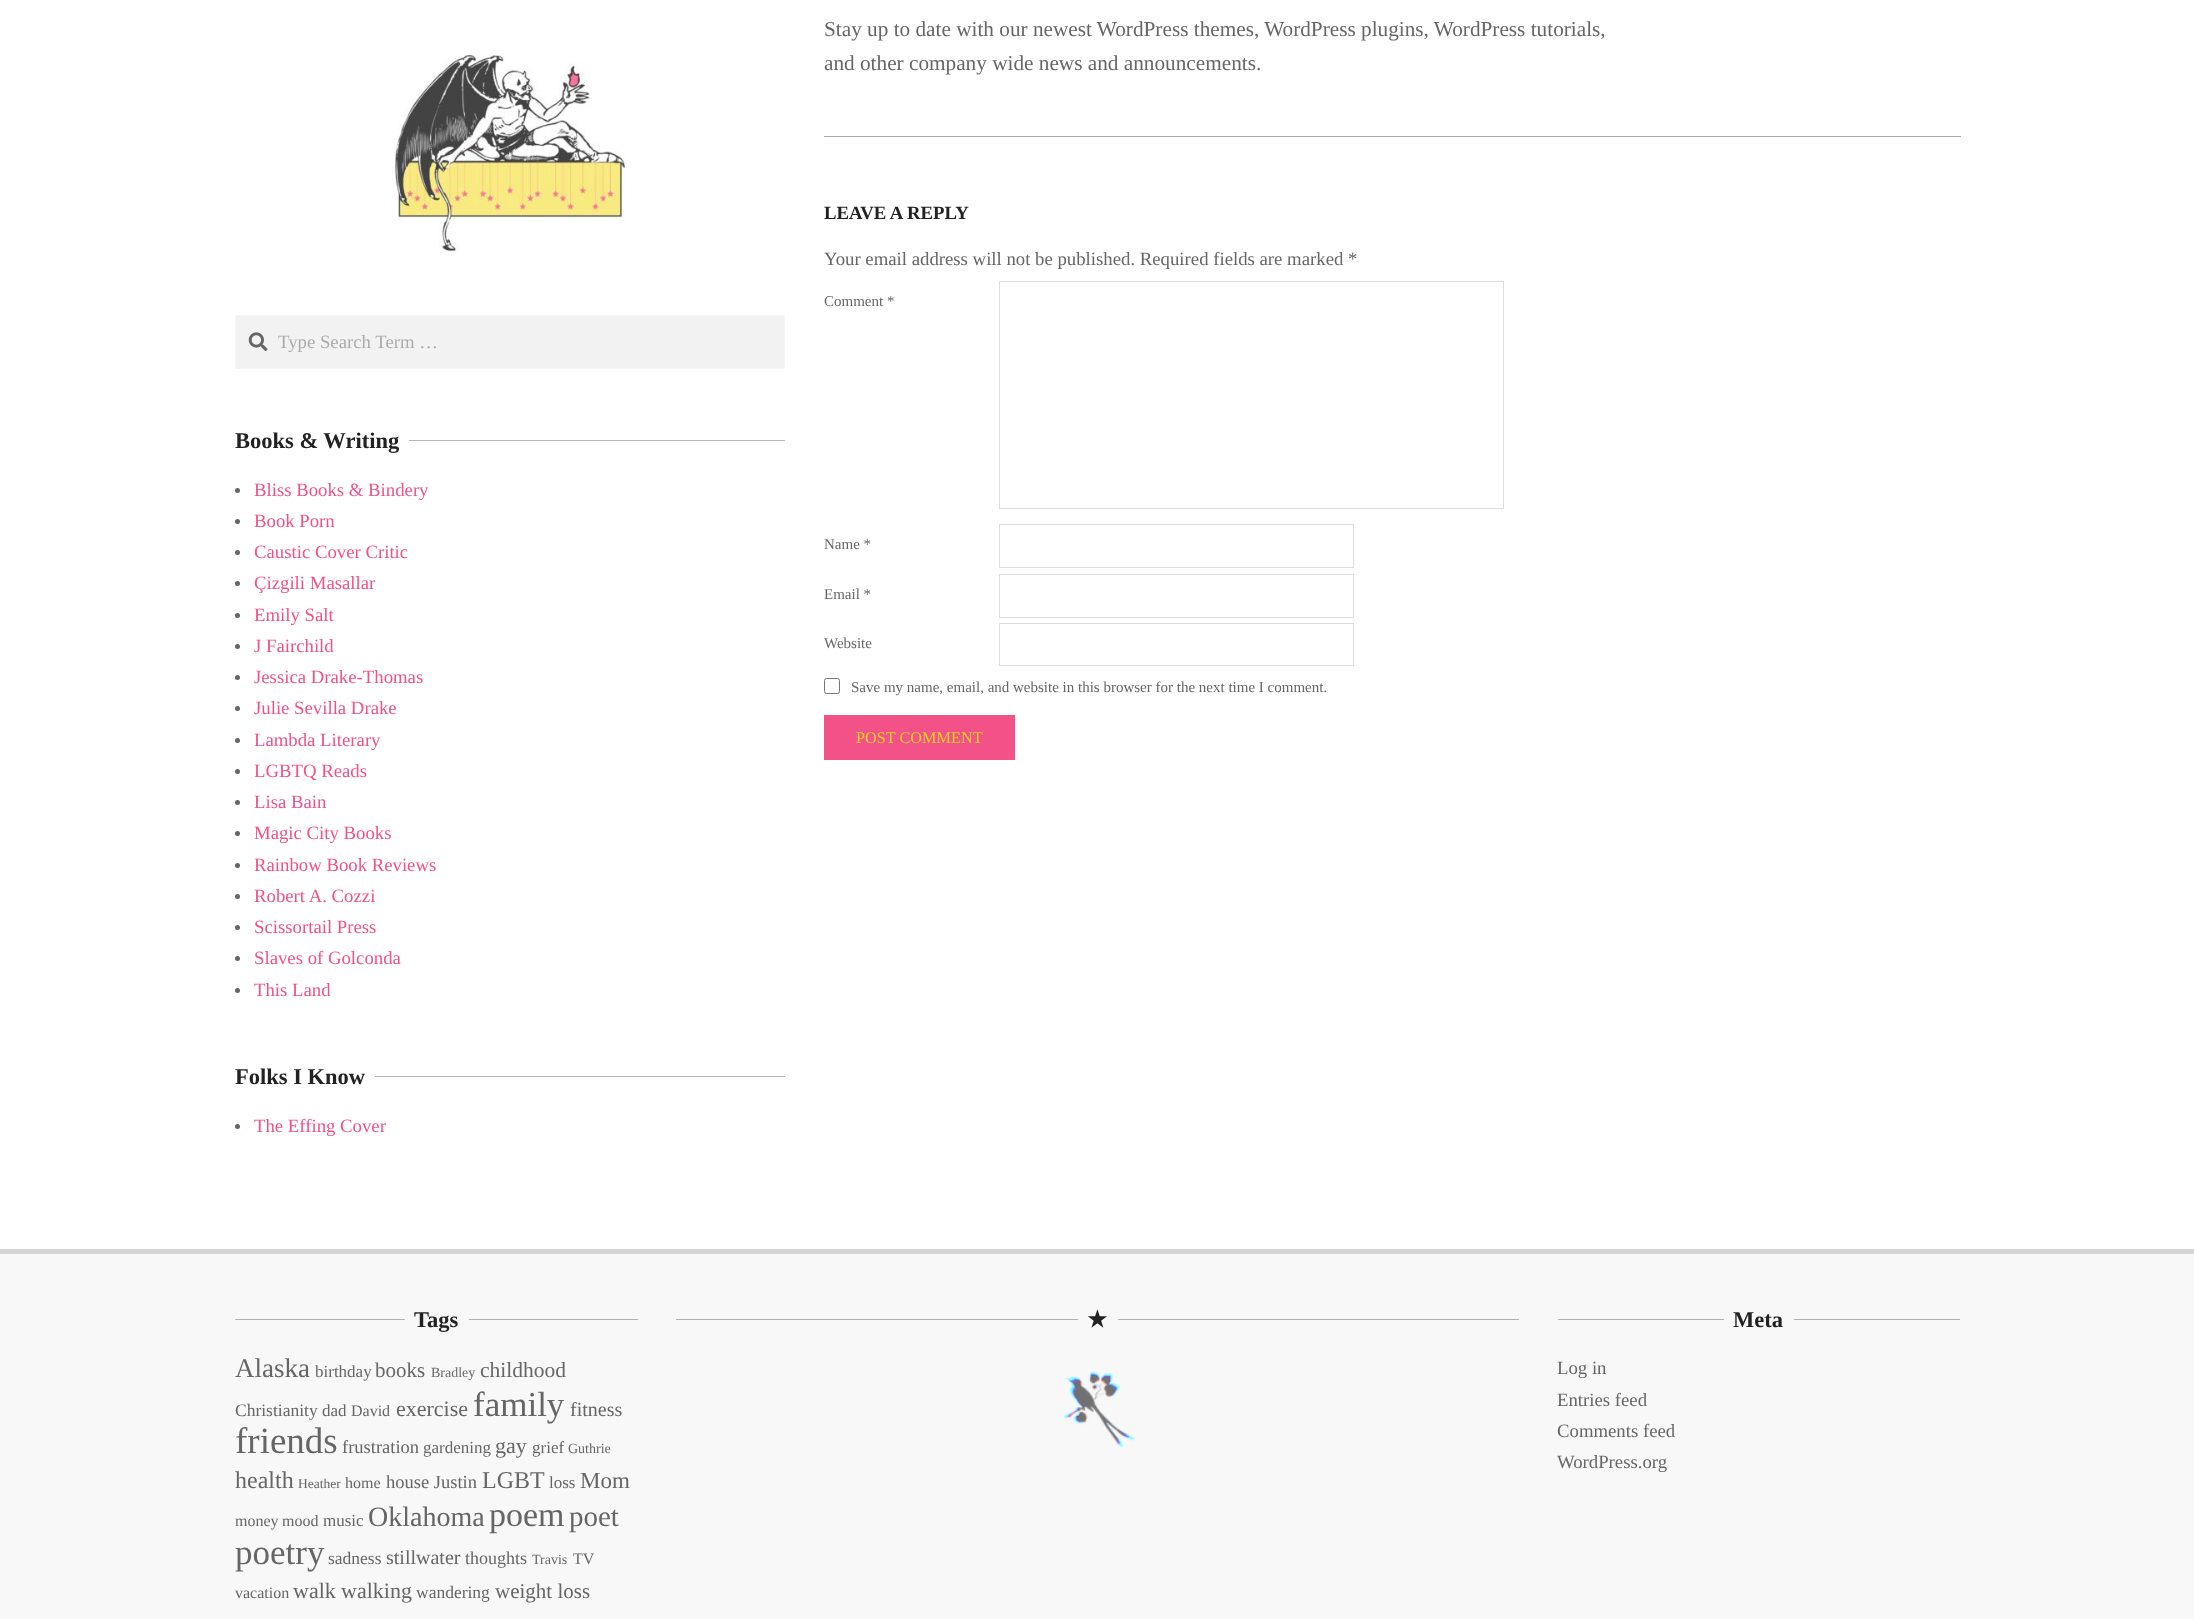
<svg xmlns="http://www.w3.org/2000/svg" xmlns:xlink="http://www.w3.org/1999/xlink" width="2194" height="1619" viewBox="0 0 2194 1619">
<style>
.cls-1{font:18.75px Liberation Serif;fill:#acacac}
.cls-2{font:bold 22.5px Liberation Serif;fill:#222222}
.cls-3{font:18.75px Liberation Serif;fill:#f25287}
.cls-4{font:21.25px Liberation Serif;fill:#666666}
.cls-5{font:bold 18.75px Liberation Serif;fill:#222222}
.cls-6{font:18.75px Liberation Serif;fill:#666666}
.cls-7{font:15px Liberation Serif;fill:#666666}
.cls-8{font:16.25px Liberation Serif;fill:#edd121}
.cls-9{font:27px Liberation Serif;fill:#666666}
.cls-10{font:17px Liberation Serif;fill:#666666}
.cls-11{font:21px Liberation Serif;fill:#666666}
.cls-12{font:14px Liberation Serif;fill:#666666}
.cls-13{font:21.5px Liberation Serif;fill:#666666}
.cls-14{font:17.5px Liberation Serif;fill:#666666}
.cls-15{font:16px Liberation Serif;fill:#666666}
.cls-16{font:22px Liberation Serif;fill:#666666}
.cls-17{font:35px Liberation Serif;fill:#666666}
.cls-18{font:20px Liberation Serif;fill:#666666}
.cls-19{font:37px Liberation Serif;fill:#666666}
.cls-20{font:18.5px Liberation Serif;fill:#666666}
.cls-21{font:24px Liberation Serif;fill:#666666}
.cls-22{font:13.5px Liberation Serif;fill:#666666}
.cls-23{font:23px Liberation Serif;fill:#666666}
.cls-24{font:28px Liberation Serif;fill:#666666}
.cls-25{font:34px Liberation Serif;fill:#666666}
.cls-26{font:29px Liberation Serif;fill:#666666}
.cls-27{font:18px Liberation Serif;fill:#666666}
.cls-28{font:bold 22.5px DejaVu Sans;fill:#222222}
</style>
<defs>
<clipPath id="clip1"><rect x="278" y="331" width="483" height="22"/></clipPath>
</defs>
<rect width="100%" height="100%" fill="#ffffff"/>
<image xlink:href="image0.png" x="393" y="55" width="232" height="200"/>
<rect fill="#f2f2f2" stroke="#f6f6f6" x="235.5" y="315.5" width="549" height="53"/>
<image xlink:href="image1.png" x="248" y="332" width="20" height="19"/>
<rect fill="#b6b6b6" x="409" y="440" width="376" height="1"/>
<circle fill="#666666" cx="237.5" cy="490.5" r="2.5"/>
<circle fill="#666666" cx="237.5" cy="521.5" r="2.5"/>
<circle fill="#666666" cx="237.5" cy="552.5" r="2.5"/>
<circle fill="#666666" cx="237.5" cy="583.5" r="2.5"/>
<circle fill="#666666" cx="237.5" cy="615.5" r="2.5"/>
<circle fill="#666666" cx="237.5" cy="646.5" r="2.5"/>
<circle fill="#666666" cx="237.5" cy="677.5" r="2.5"/>
<circle fill="#666666" cx="237.5" cy="708.5" r="2.5"/>
<circle fill="#666666" cx="237.5" cy="740.5" r="2.5"/>
<circle fill="#666666" cx="237.5" cy="771.5" r="2.5"/>
<circle fill="#666666" cx="237.5" cy="802.5" r="2.5"/>
<circle fill="#666666" cx="237.5" cy="833.5" r="2.5"/>
<circle fill="#666666" cx="237.5" cy="865.5" r="2.5"/>
<circle fill="#666666" cx="237.5" cy="896.5" r="2.5"/>
<circle fill="#666666" cx="237.5" cy="927.5" r="2.5"/>
<circle fill="#666666" cx="237.5" cy="958.5" r="2.5"/>
<circle fill="#666666" cx="237.5" cy="990.5" r="2.5"/>
<rect fill="#b6b6b6" x="375" y="1076" width="410" height="1"/>
<circle fill="#666666" cx="237.5" cy="1126.5" r="2.5"/>
<rect fill="#ababab" x="824" y="136" width="1137" height="1"/>
<rect fill="none" stroke="#dddddd" x="999.5" y="281.5" width="504" height="227"/>
<rect fill="none" stroke="#dddddd" x="999.5" y="524.5" width="354" height="43"/>
<rect fill="none" stroke="#dddddd" x="999.5" y="574.5" width="354" height="43"/>
<rect fill="none" stroke="#dddddd" x="999.5" y="623.5" width="354" height="42"/>
<rect fill="none" stroke="#767676" x="824.5" y="678.5" width="15" height="15" rx="2"/>
<rect fill="#f25287" x="824" y="715" width="191" height="45"/>
<rect fill="#f8f8f8" x="0" y="1254" width="2194" height="365"/>
<rect fill="#d5d5d5" x="0" y="1249" width="2194" height="5"/>
<rect fill="#b1b1b1" x="235" y="1319" width="170" height="1"/>
<rect fill="#b1b1b1" x="469" y="1319" width="169" height="1"/>
<rect fill="#b1b1b1" x="676" y="1319" width="402" height="1"/>
<rect fill="#b1b1b1" x="1118" y="1319" width="401" height="1"/>
<image xlink:href="image2.png" x="1063" y="1371" width="72" height="77"/>
<rect fill="#b1b1b1" x="1558" y="1319" width="166" height="1"/>
<rect fill="#b1b1b1" x="1794" y="1319" width="166" height="1"/>
<g clip-path="url(#clip1)">
<text class="cls-1" x="278" y="348">Type Search Term …</text>
</g>
<text class="cls-2" x="235" y="448">Books &amp; Writing</text>
<text class="cls-3"><tspan x="254" y="496">Bliss Books &amp; Bindery</tspan><tspan x="254" y="527">Book Porn</tspan><tspan x="254" y="558">Caustic Cover Critic</tspan><tspan x="254" y="589">Çizgili Masallar</tspan><tspan x="254" y="621">Emily Salt</tspan><tspan x="254" y="652">J Fairchild</tspan><tspan x="254" y="683">Jessica Drake-Thomas</tspan><tspan x="254" y="714">Julie Sevilla Drake</tspan><tspan x="254" y="746">Lambda Literary</tspan><tspan x="254" y="777">LGBTQ Reads</tspan><tspan x="254" y="808">Lisa Bain</tspan><tspan x="254" y="839">Magic City Books</tspan><tspan x="254" y="871">Rainbow Book Reviews</tspan><tspan x="254" y="902">Robert A. Cozzi</tspan><tspan x="254" y="933">Scissortail Press</tspan><tspan x="254" y="964">Slaves of Golconda</tspan><tspan x="254" y="996">This Land</tspan></text>
<text class="cls-2" x="235" y="1084">Folks I Know</text>
<text class="cls-3" x="254" y="1132">The Effing Cover</text>
<text class="cls-4"><tspan x="824" y="36">Stay up to date with our newest WordPress themes, WordPress plugins, WordPress tutorials,</tspan><tspan x="824" y="70">and other company wide news and announcements.</tspan></text>
<text class="cls-5" x="824" y="219">LEAVE A REPLY</text>
<text class="cls-6" x="824" y="265">Your email address will not be published. Required fields are marked *</text>
<text class="cls-7" x="824" y="306">Comment *</text>
<text class="cls-7" x="824" y="549">Name *</text>
<text class="cls-7" x="824" y="599">Email *</text>
<text class="cls-7" x="824" y="648">Website</text>
<text class="cls-7" x="851" y="692">Save my name, email, and website in this browser for the next time I comment.</text>
<text class="cls-8" x="856" y="743">POST COMMENT</text>
<text class="cls-2" x="414" y="1327">Tags</text>
<text class="cls-9" x="235" y="1377">Alaska</text>
<text class="cls-10" x="315" y="1377">birthday</text>
<text class="cls-11" x="375" y="1377">books</text>
<text class="cls-12" x="431" y="1377">Bradley</text>
<text class="cls-13" x="480" y="1377">childhood</text>
<text class="cls-14" x="235" y="1416">Christianity</text>
<text class="cls-10" x="322" y="1416">dad</text>
<text class="cls-15" x="351" y="1416">David</text>
<text class="cls-16" x="396" y="1416">exercise</text>
<text class="cls-17" x="473" y="1416">family</text>
<text class="cls-18" x="570" y="1416">fitness</text>
<text class="cls-19" x="235" y="1453">friends</text>
<text class="cls-20" x="342" y="1453">frustration</text>
<text class="cls-10" x="423" y="1453">gardening</text>
<text class="cls-16" x="495" y="1453">gay</text>
<text class="cls-10" x="532" y="1453">grief</text>
<text class="cls-12" x="568" y="1453">Guthrie</text>
<text class="cls-21" x="235" y="1488">health</text>
<text class="cls-22" x="298" y="1488">Heather</text>
<text class="cls-15" x="345" y="1488">home</text>
<text class="cls-20" x="386" y="1488">house Justin</text>
<text class="cls-21" x="482" y="1488">LGBT</text>
<text class="cls-10" x="549" y="1488">loss</text>
<text class="cls-23" x="580" y="1488">Mom</text>
<text class="cls-15" x="235" y="1526">money</text>
<text class="cls-15" x="282" y="1526">mood</text>
<text class="cls-10" x="323" y="1526">music</text>
<text class="cls-24" x="368" y="1526">Oklahoma</text>
<text class="cls-25" x="489" y="1526">poem</text>
<text class="cls-26" x="569" y="1526">poet</text>
<text class="cls-17" x="235" y="1564">poetry</text>
<text class="cls-14" x="328" y="1564">sadness</text>
<text class="cls-18" x="386" y="1564">stillwater</text>
<text class="cls-27" x="465" y="1564">thoughts</text>
<text class="cls-12" x="532" y="1564">Travis</text>
<text class="cls-15" x="573" y="1564">TV</text>
<text class="cls-15" x="235" y="1598">vacation</text>
<text class="cls-16" x="293" y="1598">walk</text>
<text class="cls-16" x="341" y="1598">walking</text>
<text class="cls-14" x="416" y="1598">wandering</text>
<text class="cls-11" x="495" y="1598">weight loss</text>
<text class="cls-28" x="1087" y="1327">★</text>
<text class="cls-2" x="1733" y="1327">Meta</text>
<text class="cls-6"><tspan x="1557" y="1374">Log in</tspan><tspan x="1557" y="1406">Entries feed</tspan><tspan x="1557" y="1437">Comments feed</tspan><tspan x="1557" y="1468">WordPress.org</tspan></text>
</svg>
